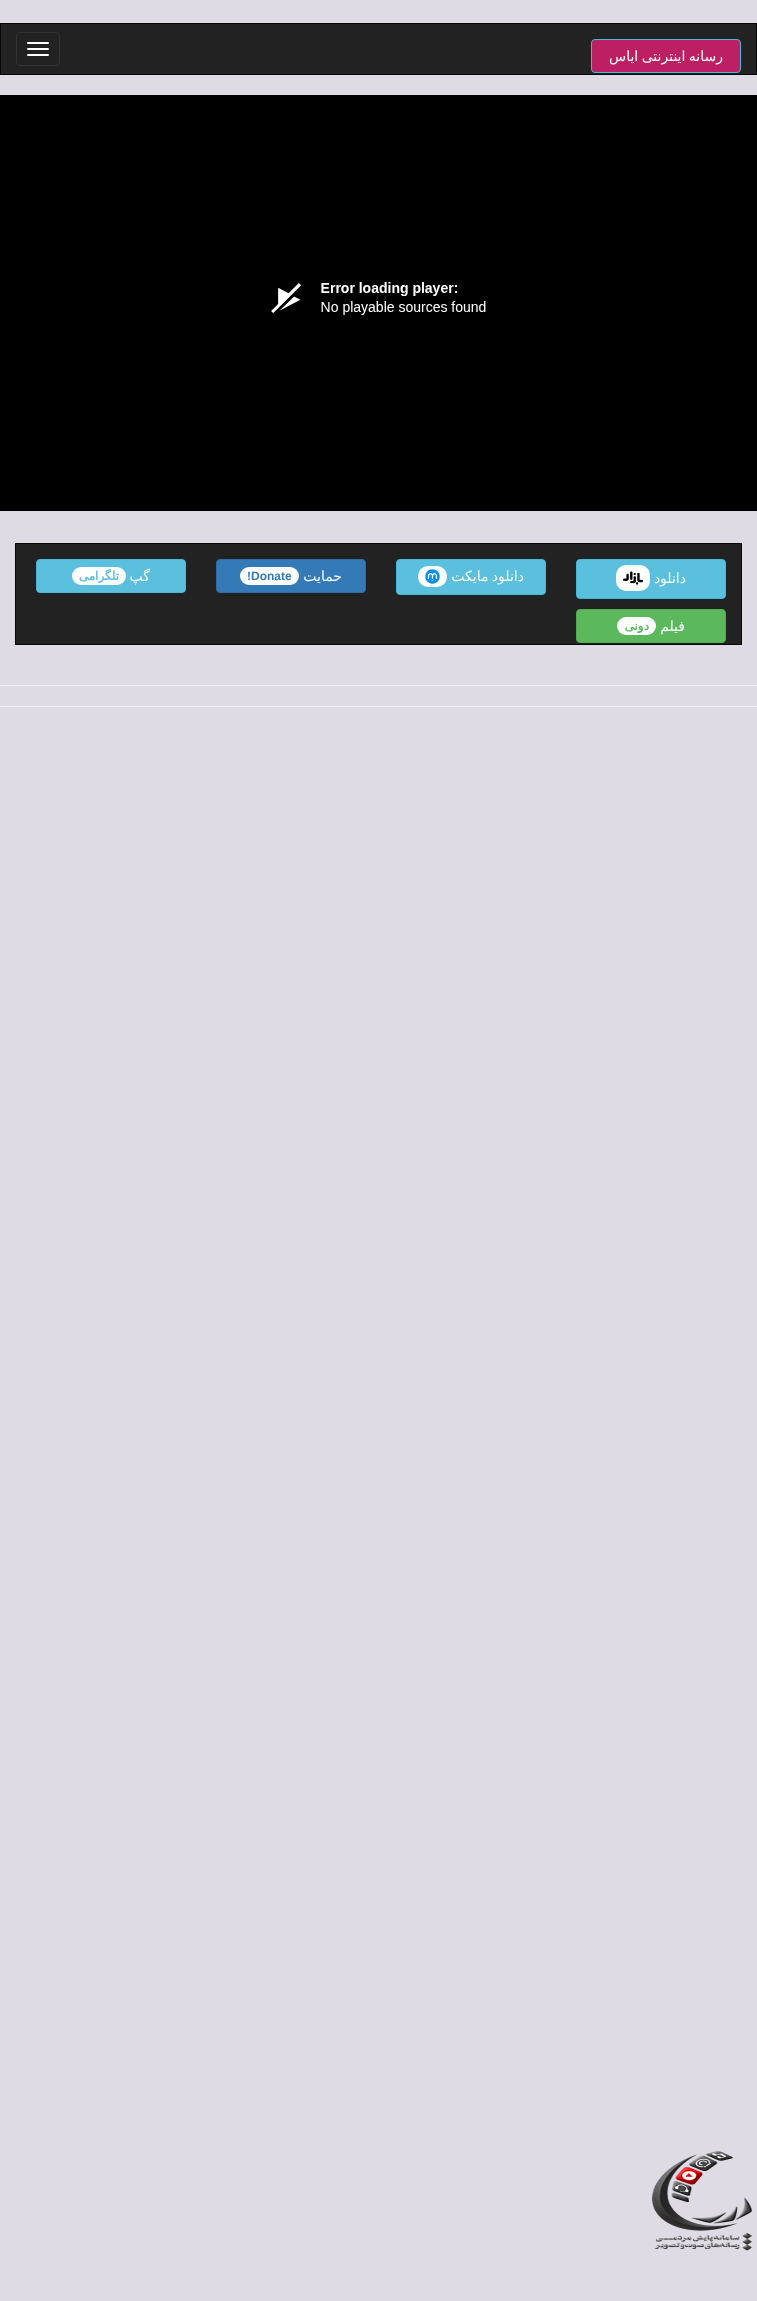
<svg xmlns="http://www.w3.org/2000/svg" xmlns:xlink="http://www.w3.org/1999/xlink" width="757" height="2301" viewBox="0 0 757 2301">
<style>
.cls-1{font:14px DejaVu Sans;direction:rtl;fill:#ffffff}
.cls-2{font:bold 12px Liberation Sans;fill:#337ab7}
.cls-3{font:bold 12px DejaVu Sans;direction:rtl;fill:#5bc0de}
.cls-4{font:bold 12px DejaVu Sans;direction:rtl;fill:#5cb85c}
</style>
<rect width="100%" height="100%" fill="#dfdbe5"/>
<rect fill="#222222" stroke="#080808" x="0.5" y="23.5" width="756" height="51"/>
<rect fill="#bd1f63" stroke="#46b8da" x="591.5" y="39.5" width="149" height="33" rx="3.5"/>
<rect fill="none" stroke="#333333" x="16.5" y="32.5" width="43" height="33" rx="3.5"/>
<rect fill="#ffffff" x="27" y="42" width="22" height="2" rx="1"/>
<rect fill="#ffffff" x="27" y="48" width="22" height="2" rx="1"/>
<rect fill="#ffffff" x="27" y="54" width="22" height="2" rx="1"/>
<image xlink:href="image0.png" x="0" y="95" width="757" height="416"/>
<rect fill="#222222" stroke="#080808" x="15.5" y="543.5" width="726" height="101"/>
<rect fill="#5bc0de" stroke="#46b8da" x="576.5" y="559.5" width="149" height="39" rx="3.5"/>
<rect fill="#ffffff" x="616" y="565" width="34" height="26" rx="10"/>
<image xlink:href="image1.png" x="623" y="571" width="20" height="14"/>
<rect fill="#5bc0de" stroke="#46b8da" x="396.5" y="559.5" width="149" height="35" rx="3.5"/>
<rect fill="#ffffff" x="418" y="566" width="29" height="21" rx="10"/>
<image xlink:href="image2.png" x="425" y="569" width="15" height="15"/>
<rect fill="#337ab7" stroke="#2e6da4" x="216.5" y="559.5" width="149" height="33" rx="3.5"/>
<rect fill="#ffffff" x="240" y="567" width="59" height="18" rx="9"/>
<rect fill="#5bc0de" stroke="#46b8da" x="36.5" y="559.5" width="149" height="33" rx="3.5"/>
<rect fill="#ffffff" x="72" y="567" width="54" height="18" rx="9"/>
<rect fill="#5cb85c" stroke="#4cae4c" x="576.5" y="609.5" width="149" height="33" rx="3.5"/>
<rect fill="#ffffff" x="617" y="617" width="39" height="18" rx="9"/>
<rect fill="#eeeeee" x="0" y="685" width="757" height="1"/>
<rect fill="#eeeeee" x="0" y="706" width="757" height="1"/>
<image xlink:href="image3.png" x="652" y="2151" width="100" height="100"/>
<text class="cls-1" x="723" y="61" word-spacing="-1">رسانه اینترنتی ایاس</text>
<text class="cls-1" x="686" y="583">دانلود</text>
<text class="cls-1" x="524" y="581" word-spacing="-1">دانلود مایکت</text>
<text class="cls-1" x="342" y="581">حمایت</text>
<text class="cls-2" x="247" y="580">!Donate</text>
<text class="cls-1" x="150" y="581">گپ</text>
<text class="cls-3" x="119" y="580">تلگرامی</text>
<text class="cls-1" x="685" y="631">فیلم</text>
<text class="cls-4" x="649" y="630">دونی</text>
</svg>
